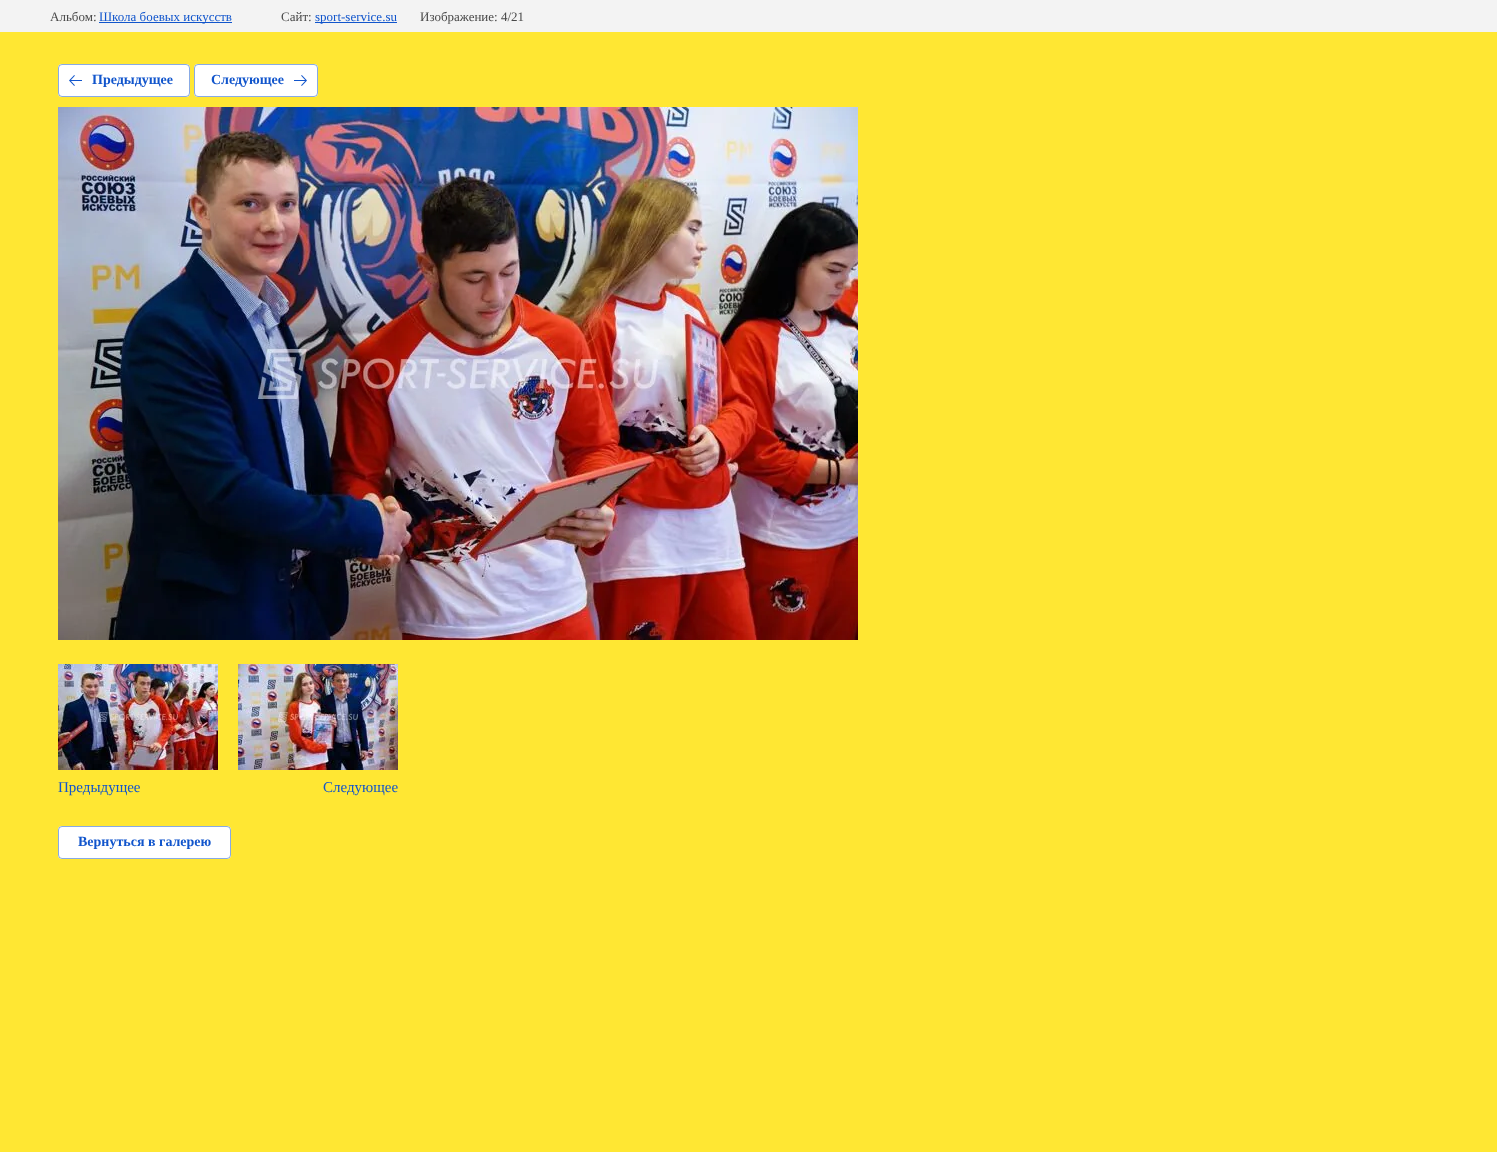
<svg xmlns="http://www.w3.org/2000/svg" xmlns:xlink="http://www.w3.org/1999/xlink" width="1497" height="1152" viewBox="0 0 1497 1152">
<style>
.cls-1{font:13px Liberation Serif;fill:#484848}
.cls-2{font:13px Liberation Serif;fill:#1155cc}
.cls-3{font:bold 14px Liberation Serif;fill:#1155cc}
.cls-4{font:15px Liberation Serif;fill:#1155cc}
</style>
<rect width="100%" height="100%" fill="#ffe733"/>
<rect fill="#f3f3f3" x="0" y="0" width="1497" height="32"/>
<rect fill="#1155cc" x="99" y="22" width="133" height="1"/>
<rect fill="#1155cc" x="315" y="22" width="82" height="1"/>
<rect fill="#ffffff" x="58" y="64" width="132" height="33" rx="4"/>
<rect fill="none" stroke="#1155cc" stroke-opacity="0.5" x="58.5" y="64.5" width="131" height="32" rx="3.5"/>
<image xlink:href="image0.png" x="69" y="75" width="13" height="11"/>
<rect fill="#ffffff" x="194" y="64" width="124" height="33" rx="4"/>
<rect fill="none" stroke="#1155cc" stroke-opacity="0.5" x="194.5" y="64.5" width="123" height="32" rx="3.5"/>
<image xlink:href="image1.png" x="294" y="75" width="13" height="11"/>
<image xlink:href="image2.png" x="58" y="107" width="800" height="533"/>
<image xlink:href="image3.png" x="58" y="664" width="160" height="106"/>
<image xlink:href="image4.png" x="238" y="664" width="160" height="106"/>
<rect fill="#ffffff" x="58" y="826" width="173" height="33" rx="4"/>
<rect fill="none" stroke="#1155cc" stroke-opacity="0.5" x="58.5" y="826.5" width="172" height="32" rx="3.5"/>
<text class="cls-1" x="50" y="21">Альбом:</text>
<text class="cls-2" x="99" y="21">Школа боевых искусств</text>
<text class="cls-1" x="281" y="21">Сайт:</text>
<text class="cls-2" x="315" y="21">sport-service.su</text>
<text class="cls-1" x="420" y="21">Изображение: 4/21</text>
<text class="cls-3" x="92" y="84">Предыдущее</text>
<text class="cls-3" x="211" y="84">Следующее</text>
<text class="cls-4" x="58" y="792">Предыдущее</text>
<text class="cls-4" x="323" y="792">Следующее</text>
<text class="cls-3" x="78" y="846">Вернуться в галерею</text>
</svg>
